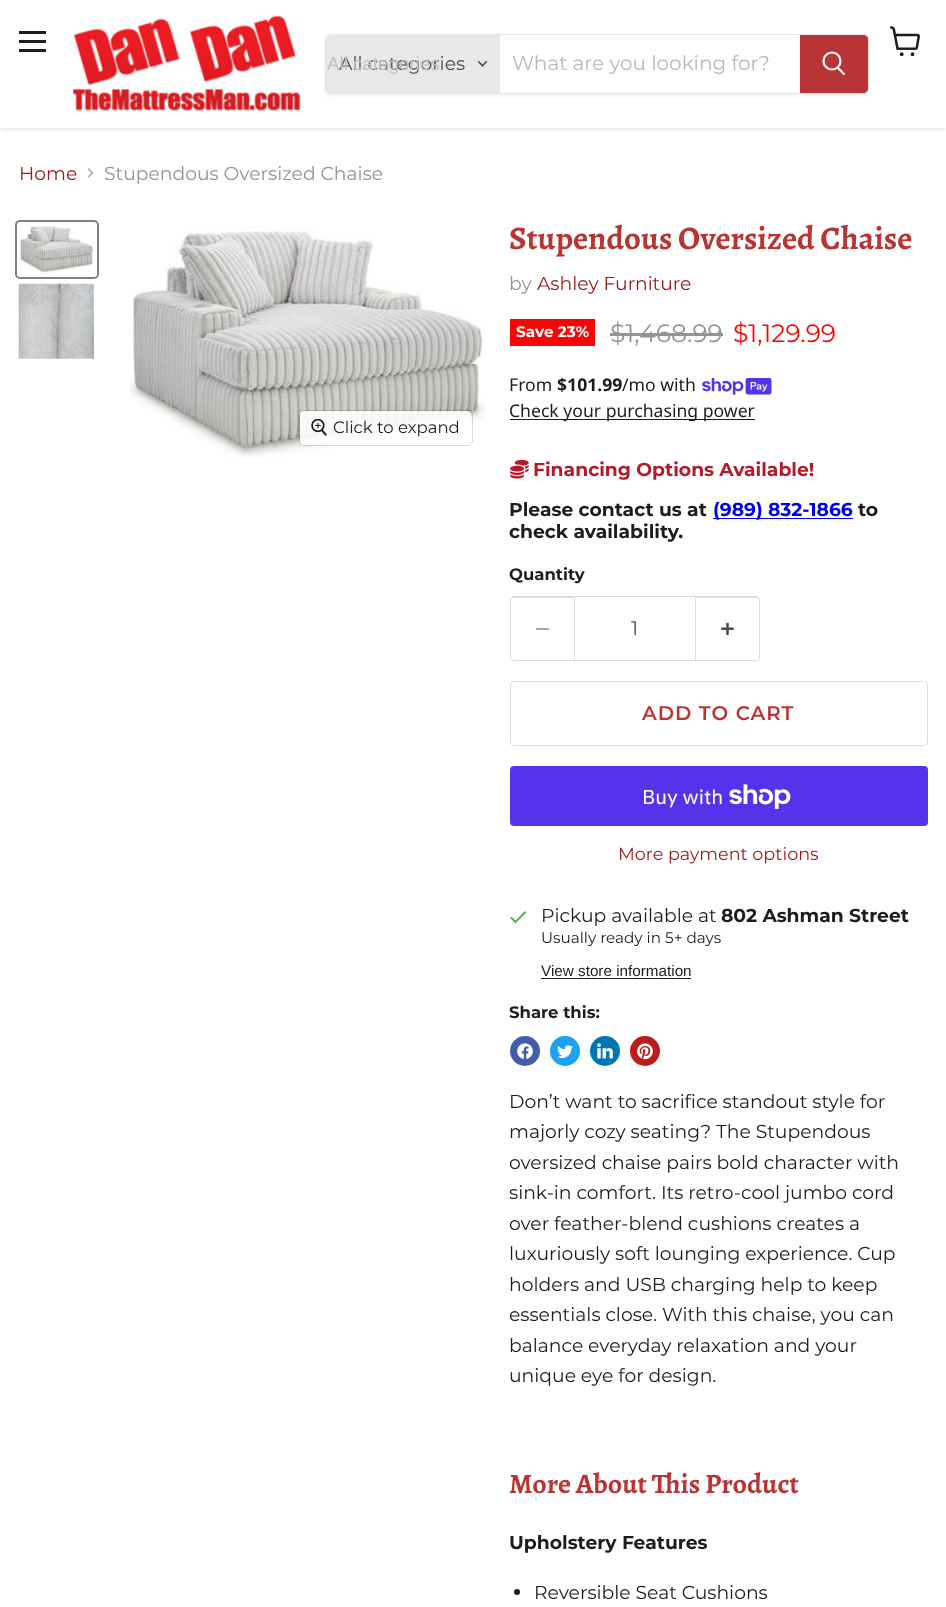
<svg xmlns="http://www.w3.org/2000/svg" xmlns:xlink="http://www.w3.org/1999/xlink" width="946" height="1607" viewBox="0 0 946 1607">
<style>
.cls-1{font:18.75px Montserrat;fill:#4d4d4d}
.cls-2{font:18.75px Liberation Sans;fill:#bfbfbf}
.cls-3{font:20px Montserrat;fill:#b8b8b8}
.cls-4{font:18.75px Montserrat;fill:#991b1b}
.cls-5{font:18.75px Montserrat;fill:#949494}
.cls-6{font:16.5px Montserrat;fill:#1d1d1d}
.cls-7{font:bold 32.75px Alegreya;fill:#b93535}
.cls-8{font:bold 15.25px Montserrat;fill:#ffffff}
.cls-9{font:25px Montserrat;fill:#949494}
.cls-10{font:25px Montserrat;fill:#f80605}
.cls-11{font:17.6px Noto Sans;fill:#1d1d1d}
.cls-12{font:bold 17.6px Noto Sans;fill:#1d1d1d}
.cls-13{font:bold 18.75px Montserrat;fill:#b11b2a}
.cls-14{font:bold 18.75px Montserrat;fill:#1d1d1d}
.cls-15{font:bold 18.75px Montserrat;fill:#0000ee}
.cls-16{font:bold 16.5px Montserrat;fill:#1d1d1d}
.cls-17{font:19.75px Montserrat;fill:#4d4d4d}
.cls-18{font:600 19.75px Montserrat;letter-spacing:1px;fill:#b93535}
.cls-19{font:20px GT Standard;fill:#ffffff}
.cls-20{font:17.6px Montserrat;fill:#991b1b}
.cls-21{font:18.75px Montserrat;fill:#1d1d1d}
.cls-22{font:15.25px Montserrat;fill:#1d1d1d}
.cls-23{font:15.25px Liberation Sans;fill:#1d1d1d}
.cls-24{font:bold 28.1px Alegreya;fill:#b93535}
</style>
<defs>
<clipPath id="clip1"><path d="M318 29H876V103H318ZM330 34H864C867 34 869 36 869 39V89C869 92 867 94 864 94H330C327 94 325 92 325 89V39C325 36 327 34 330 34Z" clip-rule="evenodd"/></clipPath>
</defs>
<rect width="100%" height="100%" fill="#ffffff"/>
<rect fill="#808080" fill-opacity="0.25" filter="blur(2.5px)" x="0" y="1" width="946" height="128"/>
<rect fill="#ffffff" x="0" y="0" width="946" height="128"/>
<rect fill="#1d1d1d" x="19" y="31" width="27" height="3"/>
<rect fill="#1d1d1d" x="19" y="40" width="27" height="3"/>
<rect fill="#1d1d1d" x="19" y="49" width="27" height="3"/>
<image xlink:href="image0.png" x="890" y="26" width="30" height="30"/>
<image xlink:href="image1.png" x="72" y="15" width="230" height="97"/>
<g clip-path="url(#clip1)">
<rect fill="#808080" fill-opacity="0.11" filter="blur(2px)" x="325" y="36" width="544" height="60" rx="5"/>
</g>
<rect fill="none" stroke="#808080" stroke-opacity="0.2" x="325.5" y="34.5" width="543" height="59" rx="4.5"/>
<path fill="#e8e8e8" d="M330 35H500V93H330C328 93 326 91 326 89V39C326 37 328 35 330 35Z"/>
<image xlink:href="image2.png" x="478" y="60" width="10" height="7"/>
<path fill="#b93535" stroke="#b93535" d="M800.5 35.5H864C866 35.5 867.5 37 867.5 39V89C867.5 91 866 92.5 864 92.5H800.5Z"/>
<path fill="none" stroke="#ffffff" stroke-width="2.2" stroke-linecap="round" d="M844 74L838 68"/>
<circle fill="none" stroke="#ffffff" stroke-width="2.2" cx="832" cy="61" r="8.5"/>
<image xlink:href="image3.png" x="88" y="168" width="6" height="10"/>
<rect fill="none" stroke="#818181" stroke-width="2" x="16" y="221" width="82" height="57" rx="4"/>
<image xlink:href="image4.png" x="19" y="226" width="75" height="48"/>
<image xlink:href="image5.png" x="18" y="283" width="76" height="76"/>
<image xlink:href="image6.png" x="129" y="227" width="357" height="231"/>
<rect fill="none" stroke="#000000" stroke-opacity="0.15" x="299.5" y="410.5" width="173" height="35" rx="4.5"/>
<rect fill="#ffffff" fill-opacity="0.9" x="300" y="411" width="171" height="34" rx="4"/>
<image xlink:href="image7.png" x="311" y="419" width="16" height="17"/>
<rect fill="#f80605" x="510" y="319" width="85" height="27"/>
<rect fill="#949494" x="610" y="333" width="113" height="3"/>
<image xlink:href="image8.png" x="702" y="378" width="70" height="17"/>
<rect fill="#1d1d1d" x="510" y="419" width="245" height="1"/>
<image xlink:href="image9.png" x="510" y="459" width="19" height="20"/>
<rect fill="#0000ee" x="713" y="518" width="140" height="1"/>
<path fill="#dddddd" fill-rule="evenodd" d="M514 596H574V661H514C512 661 510 660 510 658V600C510 598 512 596 514 596ZM514 598H574V660H514C512 660 511 659 511 658V600C511 599 512 598 514 598Z"/>
<rect fill="#a6a6a6" x="536" y="628" width="13" height="2"/>
<rect fill="none" stroke="#dddddd" x="574.5" y="596.5" width="121" height="64"/>
<path fill="#dddddd" fill-rule="evenodd" d="M696 596H756C758 596 760 598 760 600V658C760 660 758 661 756 661H696ZM696 598H756C758 598 759 599 759 600V658C759 659 758 660 756 660H696Z"/>
<image xlink:href="image10.png" x="721" y="623" width="13" height="12"/>
<rect fill="none" stroke="#dddddd" x="510.5" y="681.5" width="417" height="64" rx="3.5"/>
<rect fill="#5433eb" x="510" y="766" width="418" height="60" rx="4"/>
<image xlink:href="image11.png" x="729" y="784" width="62" height="25"/>
<image xlink:href="image12.png" x="510" y="911" width="16" height="13"/>
<rect fill="#1d1d1d" x="541" y="978" width="150" height="1"/>
<circle fill="#425dab" cx="525" cy="1051" r="15"/>
<image xlink:href="image13.png" x="517" y="1043" width="16" height="16"/>
<circle fill="#1da1f2" cx="565" cy="1051" r="15"/>
<image xlink:href="image14.png" x="557" y="1045" width="16" height="13"/>
<circle fill="#0077b5" cx="605" cy="1051" r="15"/>
<image xlink:href="image15.png" x="597" y="1043" width="16" height="16"/>
<circle fill="#bd1c1c" cx="645" cy="1051" r="15"/>
<image xlink:href="image16.png" x="637" y="1043" width="16" height="17"/>
<circle fill="#1d1d1d" cx="517" cy="1592" r="3"/>
<text class="cls-1" x="339" y="70">All categories</text>
<text class="cls-2" x="327" y="70">All categories</text>
<text class="cls-3" x="512" y="70">What are you looking for?</text>
<text class="cls-4" x="19" y="180">Home</text>
<text class="cls-5" x="104" y="180">Stupendous Oversized Chaise</text>
<text class="cls-6" x="333" y="433">Click to expand</text>
<text class="cls-7" x="509" y="249">Stupendous Oversized Chaise</text>
<text class="cls-5" x="509" y="290">by</text>
<text class="cls-4" x="537" y="290">Ashley Furniture</text>
<text class="cls-8" x="516" y="337">Save 23%</text>
<text class="cls-9" x="610" y="342">$1,468.99</text>
<text class="cls-10" x="733" y="342">$1,129.99</text>
<text class="cls-11" x="509" y="391">From</text>
<text class="cls-12" x="557" y="391">$101.99</text>
<text class="cls-11" x="622" y="391">/mo with</text>
<text class="cls-11" x="509" y="417">Check your purchasing power</text>
<text class="cls-13" x="533" y="476">Financing Options Available!</text>
<text class="cls-14" x="509" y="516">Please contact us at</text>
<text class="cls-15" x="713" y="516">(989) 832-1866</text>
<text class="cls-14" x="858" y="516">to</text>
<text class="cls-14" x="509" y="538">check availability.</text>
<text class="cls-16" x="509" y="580">Quantity</text>
<text class="cls-17" x="631" y="635">1</text>
<text class="cls-18" x="642" y="720">ADD TO CART</text>
<text class="cls-19" x="642" y="804">Buy with</text>
<text class="cls-20" x="618" y="860">More payment options</text>
<text class="cls-21" x="541" y="922">Pickup available at</text>
<text class="cls-14" x="721" y="922">802 Ashman Street</text>
<text class="cls-22" x="541" y="943">Usually ready in 5+ days</text>
<text class="cls-23" x="541" y="976">View store information</text>
<text class="cls-16" x="509" y="1018">Share this:</text>
<text class="cls-21"><tspan x="509" y="1108">Don’t want to sacrifice standout style for</tspan><tspan x="509" y="1138">majorly cozy seating? The Stupendous</tspan><tspan x="509" y="1169">oversized chaise pairs bold character with</tspan><tspan x="509" y="1199">sink-in comfort. Its retro-cool jumbo cord</tspan><tspan x="509" y="1230">over feather-blend cushions creates a</tspan><tspan x="509" y="1260">luxuriously soft lounging experience. Cup</tspan><tspan x="509" y="1291">holders and USB charging help to keep</tspan><tspan x="509" y="1321">essentials close. With this chaise, you can</tspan><tspan x="509" y="1352">balance everyday relaxation and your</tspan><tspan x="509" y="1382">unique eye for design.</tspan></text>
<text class="cls-24" x="509" y="1493">More About This Product</text>
<text class="cls-14" x="509" y="1549">Upholstery Features</text>
<text class="cls-21" x="534" y="1599">Reversible Seat Cushions</text>
</svg>
